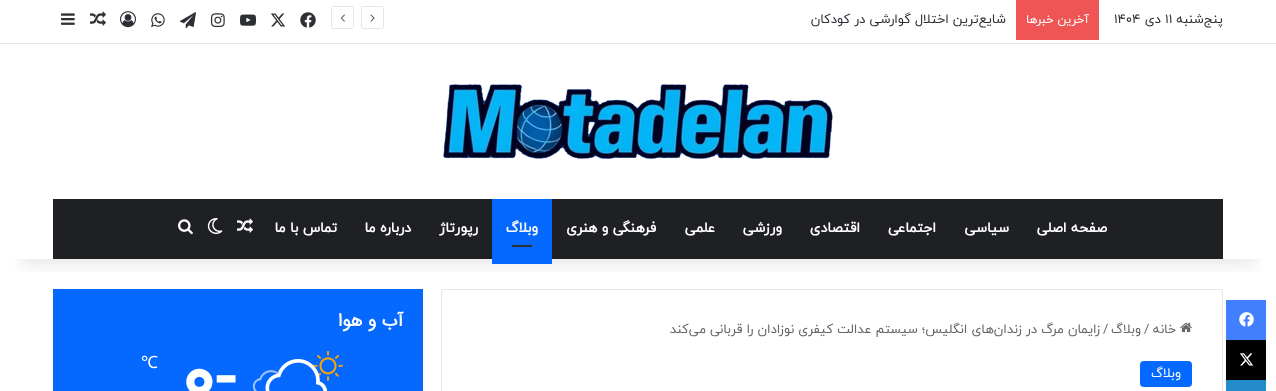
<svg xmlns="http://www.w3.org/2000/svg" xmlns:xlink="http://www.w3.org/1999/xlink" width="1276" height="391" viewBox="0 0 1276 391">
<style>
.cls-1{font:13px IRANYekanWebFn;direction:rtl;fill:#2c2f34}
.cls-2{font:13px IRANYekanWebFn;fill:#2c2f34}
.cls-3{font:12px IRANYekanWebFn;direction:rtl;fill:#ffffff}
.cls-4{font:bold 14px IRANYekanWebFn;direction:rtl;fill:#ffffff}
.cls-5{font:13px IRANYekanWebFn;direction:rtl;fill:#666666}
.cls-6{font:13px IRANYekanWebFn;fill:#666666}
.cls-7{font:13px IRANYekanWebFn;direction:rtl;fill:#ffffff}
.cls-8{font:bold 18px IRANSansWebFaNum;direction:rtl;fill:#ffffff}
.cls-9{font:17px Noto Sans;fill:#ffffff}
.cls-10{font:bold 70px IRANYekanWebFn;fill:#ffffff}
</style>
<defs>
<clipPath id="clip1"><rect x="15" y="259" width="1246" height="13"/></clipPath>
</defs>
<rect width="100%" height="100%" fill="#ffffff"/>
<rect fill="none" stroke="#e6e6e6" x="441.5" y="289.5" width="781" height="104" rx="1.5"/>
<rect fill="#0669ff" x="53" y="289" width="370" height="102"/>
<g clip-path="url(#clip1)">
<rect fill="#000000" fill-opacity="0.1" filter="blur(10px)" x="20" y="45" width="1236" height="219"/>
</g>
<rect fill="#e6e6e6" x="0" y="43" width="1276" height="1"/>
<rect fill="#f05555" x="1016" y="0" width="83" height="40"/>
<path fill="none" stroke="#e6e6e6" d="M382 28.5H363C362 28.5 361.5 28 361.5 27V8C361.5 7 362 6.5 363 6.5H382C383 6.5 383.5 7 383.5 8V27C383.5 28 383 28.5 382 28.5Z"/>
<image xlink:href="image0.png" x="370" y="14" width="5" height="8"/>
<path fill="none" stroke="#e6e6e6" d="M352 28.5H333C332 28.5 331.5 28 331.5 27V8C331.5 7 332 6.5 333 6.5H352C353 6.5 353.5 7 353.5 8V27C353.5 28 353 28.5 352 28.5Z"/>
<image xlink:href="image1.png" x="340" y="14" width="5" height="8"/>
<image xlink:href="image2.png" x="300" y="12" width="16" height="16"/>
<image xlink:href="image3.png" x="271" y="13" width="15" height="14"/>
<image xlink:href="image4.png" x="240" y="14" width="16" height="12"/>
<image xlink:href="image5.png" x="211" y="13" width="14" height="14"/>
<image xlink:href="image6.png" x="180" y="12" width="16" height="17"/>
<image xlink:href="image7.png" x="151" y="13" width="14" height="14"/>
<image xlink:href="image8.png" x="120" y="11" width="16" height="17"/>
<image xlink:href="image9.png" x="90" y="11" width="16" height="15"/>
<image xlink:href="image10.png" x="61" y="13" width="14" height="12"/>
<image xlink:href="image11.png" x="443" y="84" width="390" height="75"/>
<rect fill="#1f2024" x="53" y="199" width="1170" height="60"/>
<rect fill="#0669ff" x="492" y="199" width="60" height="65"/>
<rect fill="#2c2f34" x="512" y="245" width="20" height="2"/>
<image xlink:href="image12.png" x="237" y="218" width="16" height="15"/>
<image xlink:href="image13.png" x="207" y="218" width="16" height="16"/>
<image xlink:href="image14.png" x="178" y="219" width="15" height="16"/>
<rect fill="#4080ff" x="1226" y="300" width="40" height="40"/>
<image xlink:href="image15.png" x="1239" y="312" width="15" height="15"/>
<rect fill="#000000" x="1226" y="340" width="40" height="40"/>
<image xlink:href="image16.png" x="1239" y="353" width="15" height="13"/>
<rect fill="#238cc8" x="1226" y="380" width="40" height="11"/>
<image xlink:href="image17.png" x="1180" y="322" width="12" height="11"/>
<rect fill="#0669ff" x="1140" y="361" width="52" height="26" rx="4"/>
<image xlink:href="image18.png" x="313" y="351" width="30" height="30"/>
<image xlink:href="image21.png" x="252" y="370" width="27" height="21"/>
<image xlink:href="image20.png" x="276" y="365" width="44" height="26"/>
<image xlink:href="image19.png" x="265" y="359" width="62" height="32"/>
<text class="cls-1" x="1223" y="23">پنج‌شنبه</text>
<text class="cls-2" x="1165" y="23">۱۱</text>
<text class="cls-1" x="1161" y="23">دی</text>
<text class="cls-2" x="1114" y="23">۱۴۰۴</text>
<text class="cls-3" x="1089" y="23">آخرین خبرها</text>
<text class="cls-1" x="1006" y="23">شایع‌ترین اختلال گوارشی در کودکان</text>
<text class="cls-4" x="1107" y="232">صفحه اصلی</text>
<text class="cls-4" x="1009" y="232">سیاسی</text>
<text class="cls-4" x="936" y="232">اجتماعی</text>
<text class="cls-4" x="860" y="232">اقتصادی</text>
<text class="cls-4" x="782" y="232">ورزشی</text>
<text class="cls-4" x="715" y="232">علمی</text>
<text class="cls-4" x="656" y="232">فرهنگی و هنری</text>
<text class="cls-4" x="538" y="232">وبلاگ</text>
<text class="cls-4" x="478" y="232">رپورتاژ</text>
<text class="cls-4" x="411" y="232">درباره ما</text>
<text class="cls-4" x="337" y="232">تماس با ما</text>
<text class="cls-5" x="1176" y="333">خانه</text>
<text class="cls-6" x="1144" y="333">/</text>
<text class="cls-5" x="1141" y="333">وبلاگ</text>
<text class="cls-6" x="1103" y="333">/</text>
<text class="cls-5" x="1100" y="333">زایمان مرگ در زندان‌های انگلیس؛ سیستم عدالت کیفری نوزادان را قربانی می‌کند</text>
<text class="cls-7" x="1181" y="377">وبلاگ</text>
<text class="cls-8" x="403" y="326">آب و هوا</text>
<text class="cls-9" x="141" y="368">℃</text>
<text class="cls-10" x="181" y="401">۰-</text>
</svg>
